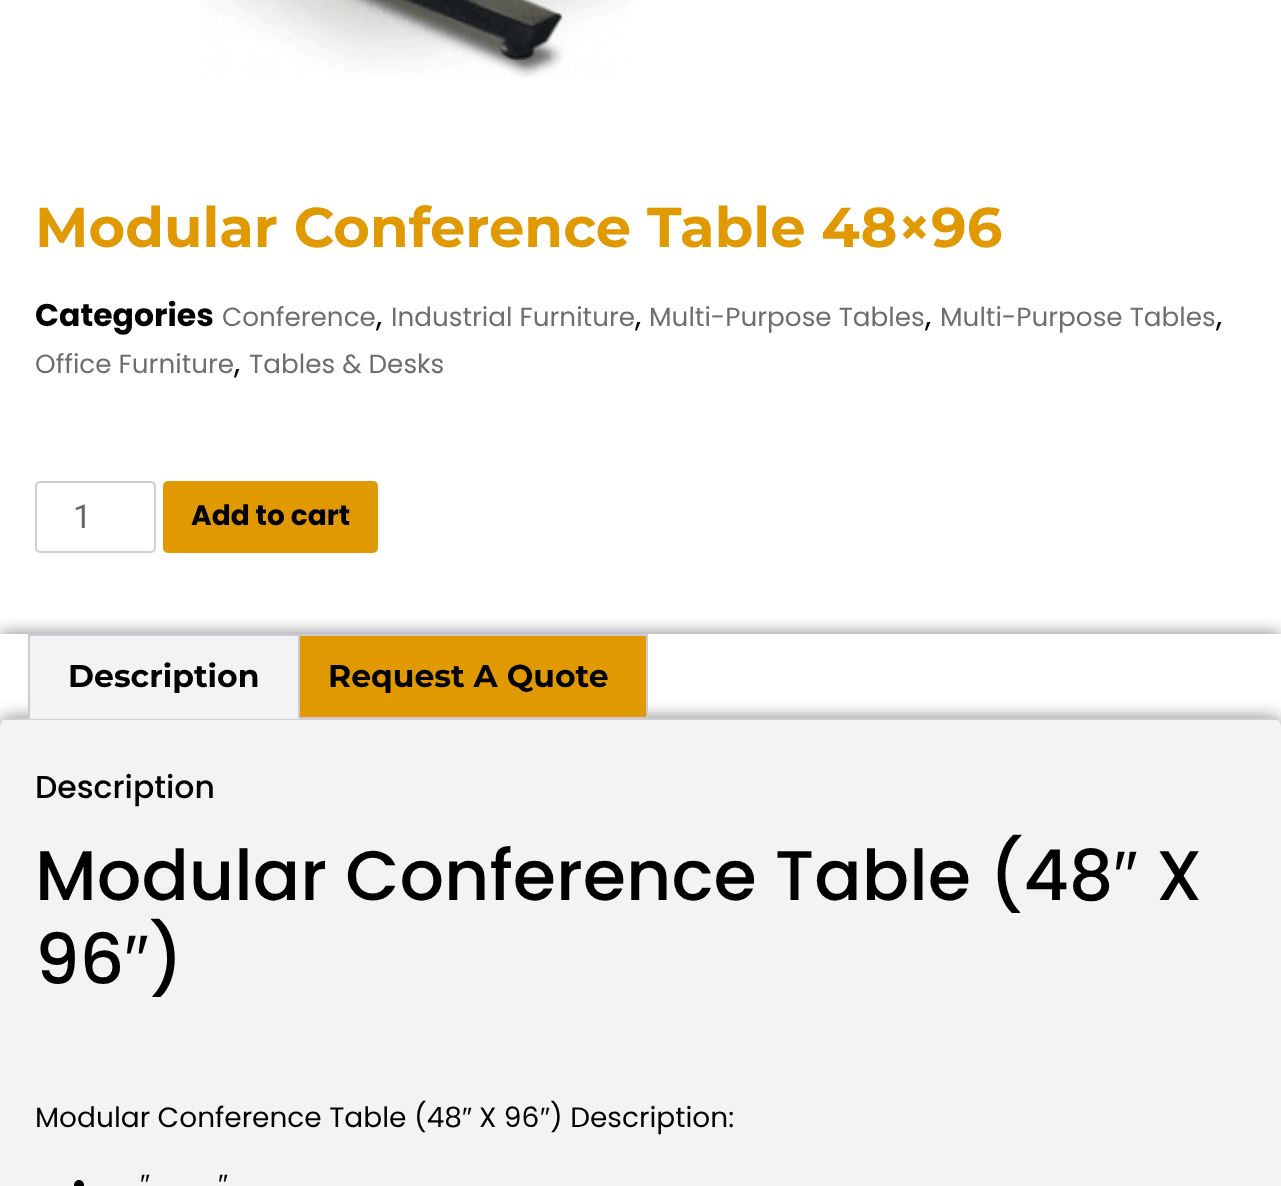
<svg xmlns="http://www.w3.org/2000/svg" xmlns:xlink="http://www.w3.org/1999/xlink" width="1281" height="1186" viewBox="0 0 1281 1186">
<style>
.cls-1{font:bold 56px Montserrat;fill:#e09900}
.cls-2{font:bold 31.5px Poppins;fill:#000000}
.cls-3{font:26.25px Poppins;fill:#6e6e6e}
.cls-4{font:31.5px Poppins;fill:#000000}
.cls-5{font:33px Roboto;fill:#666666}
.cls-6{font:bold 28px Poppins;fill:#000000}
.cls-7{font:bold 31.5px Montserrat;fill:#000000}
.cls-8{font:500 31.5px Poppins;fill:#000000}
.cls-9{font:500 70px Poppins;fill:#000000}
.cls-10{font:70px Liberation Sans;fill:#000000}
.cls-11{font:28px Poppins;fill:#000000}
.cls-12{font:28px Liberation Sans;fill:#000000}
</style>
<defs>
<clipPath id="clip1"><rect x="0" y="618" width="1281" height="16"/></clipPath>
</defs>
<rect width="100%" height="100%" fill="#ffffff"/>
<image xlink:href="image0.png" x="200" y="0" width="433" height="78"/>
<rect fill="none" stroke="#cfcfcf" stroke-width="2" x="36" y="482" width="119" height="70" rx="4"/>
<rect fill="#e09900" x="163" y="481" width="215" height="72" rx="5"/>
<g clip-path="url(#clip1)">
<rect fill="#000000" fill-opacity="0.5" filter="blur(9px)" x="0" y="634" width="1281" height="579"/>
</g>
<rect fill="#000000" fill-opacity="0.5" filter="blur(9px)" x="0" y="718" width="1281" height="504" rx="9"/>
<rect fill="#e09900" x="300" y="636" width="346" height="81"/>
<rect fill="#f3f3f3" x="0" y="718" width="1281" height="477" rx="9"/>
<rect fill="#d3ced2" x="5" y="718" width="1273" height="2"/>
<rect fill="none" stroke="#cfc8d8" stroke-width="2" x="290" y="635" width="357" height="83"/>
<rect fill="#f3f3f3" x="30" y="636" width="268" height="82"/>
<rect fill="#cfc8d8" x="28" y="634" width="261" height="2"/>
<rect fill="#cfc8d8" x="298" y="634" width="2" height="85"/>
<rect fill="#f3f3f3" x="28" y="718" width="271" height="1"/>
<rect fill="#cfc8d8" x="28" y="634" width="2" height="85"/>
<circle fill="#000000" cx="79" cy="1185" r="5"/>
<text class="cls-1" x="35" y="247">Modular Conference Table 48×96</text>
<text class="cls-2" x="35" y="326">Categories</text>
<text class="cls-3" x="222" y="326">Conference</text>
<text class="cls-4" x="376" y="326">,</text>
<text class="cls-3" x="391" y="326">Industrial Furniture</text>
<text class="cls-4" x="635" y="326">,</text>
<text class="cls-3" x="649" y="326">Multi-Purpose Tables</text>
<text class="cls-4" x="925" y="326">,</text>
<text class="cls-3" x="940" y="326">Multi-Purpose Tables</text>
<text class="cls-4" x="1216" y="326">,</text>
<text class="cls-3" x="35" y="373">Office Furniture</text>
<text class="cls-4" x="234" y="373">,</text>
<text class="cls-3" x="249" y="373">Tables &amp; Desks</text>
<text class="cls-5" x="73" y="528">1</text>
<text class="cls-6" x="191" y="525">Add to cart</text>
<text class="cls-7" x="68" y="687">Description</text>
<text class="cls-7" x="328" y="687">Request A Quote</text>
<text class="cls-8" x="35" y="798">Description</text>
<text class="cls-9" x="35" y="900">Modular Conference Table (48</text>
<text class="cls-10" x="1113" y="900">″</text>
<text class="cls-9" x="1156" y="900">X</text>
<text class="cls-9" x="35" y="984">96</text>
<text class="cls-10" x="124" y="984">″</text>
<text class="cls-9" x="149" y="984">)</text>
<text class="cls-11" x="35" y="1127">Modular Conference Table (48</text>
<text class="cls-12" x="462" y="1127">″</text>
<text class="cls-11" x="479" y="1127">X 96</text>
<text class="cls-12" x="540" y="1127">″</text>
<text class="cls-11" x="550" y="1127">) Description:</text>
<text class="cls-12" x="140" y="1194">″</text>
<text class="cls-12" x="218" y="1194">″</text>
</svg>
